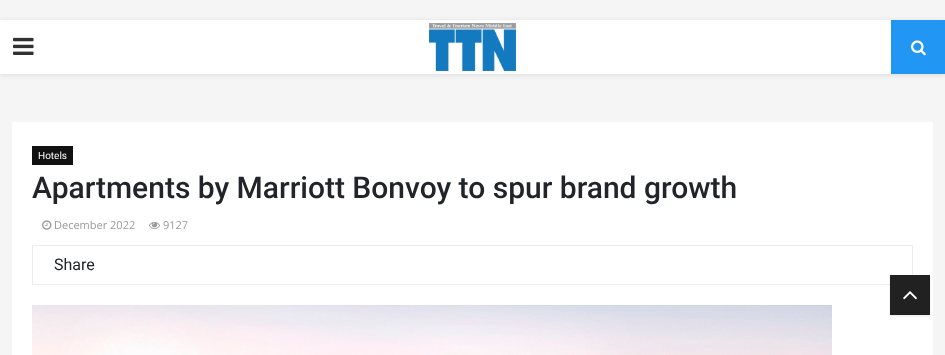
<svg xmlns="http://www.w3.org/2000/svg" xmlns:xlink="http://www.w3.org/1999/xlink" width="945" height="355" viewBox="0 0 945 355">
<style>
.cls-1{font:10px Roboto;fill:#ffffff}
.cls-2{font:500 30px Roboto;fill:#212529}
.cls-3{font:11px Open Sans;fill:#999999}
.cls-4{font:16px Roboto;fill:#212529}
</style>
<rect width="100%" height="100%" fill="#f5f5f5"/>
<rect fill="#bebebe" fill-opacity="0.46" filter="blur(2.5px)" x="0" y="21" width="945" height="54"/>
<rect fill="#ffffff" x="0" y="20" width="891" height="54"/>
<image xlink:href="image0.png" x="13" y="37" width="21" height="18"/>
<image xlink:href="image1.png" x="429" y="23" width="87" height="48"/>
<rect fill="#2196f3" x="891" y="20" width="54" height="54"/>
<image xlink:href="image2.png" x="911" y="40" width="15" height="16"/>
<rect fill="#ffffff" x="12" y="122" width="921" height="233"/>
<rect fill="#111111" x="32" y="146" width="41" height="19"/>
<image xlink:href="image3.png" x="42" y="220" width="10" height="10"/>
<image xlink:href="image4.png" x="149" y="222" width="11" height="7"/>
<rect fill="none" stroke="#ececec" x="32.5" y="245.5" width="880" height="39"/>
<image xlink:href="image5.png" x="32" y="305" width="800" height="50"/>
<rect fill="#000000" fill-opacity="0.1" filter="blur(1px)" x="890" y="276" width="40" height="40"/>
<rect fill="#212121" x="890" y="275" width="40" height="40"/>
<image xlink:href="image6.png" x="903" y="291" width="14" height="9"/>
<text class="cls-1" x="38" y="159">Hotels</text>
<text class="cls-2" x="32" y="198">Apartments by Marriott Bonvoy to spur brand growth</text>
<text class="cls-3" x="54" y="229">December 2022</text>
<text class="cls-3" x="163" y="229">9127</text>
<text class="cls-4" x="54" y="270">Share</text>
</svg>
